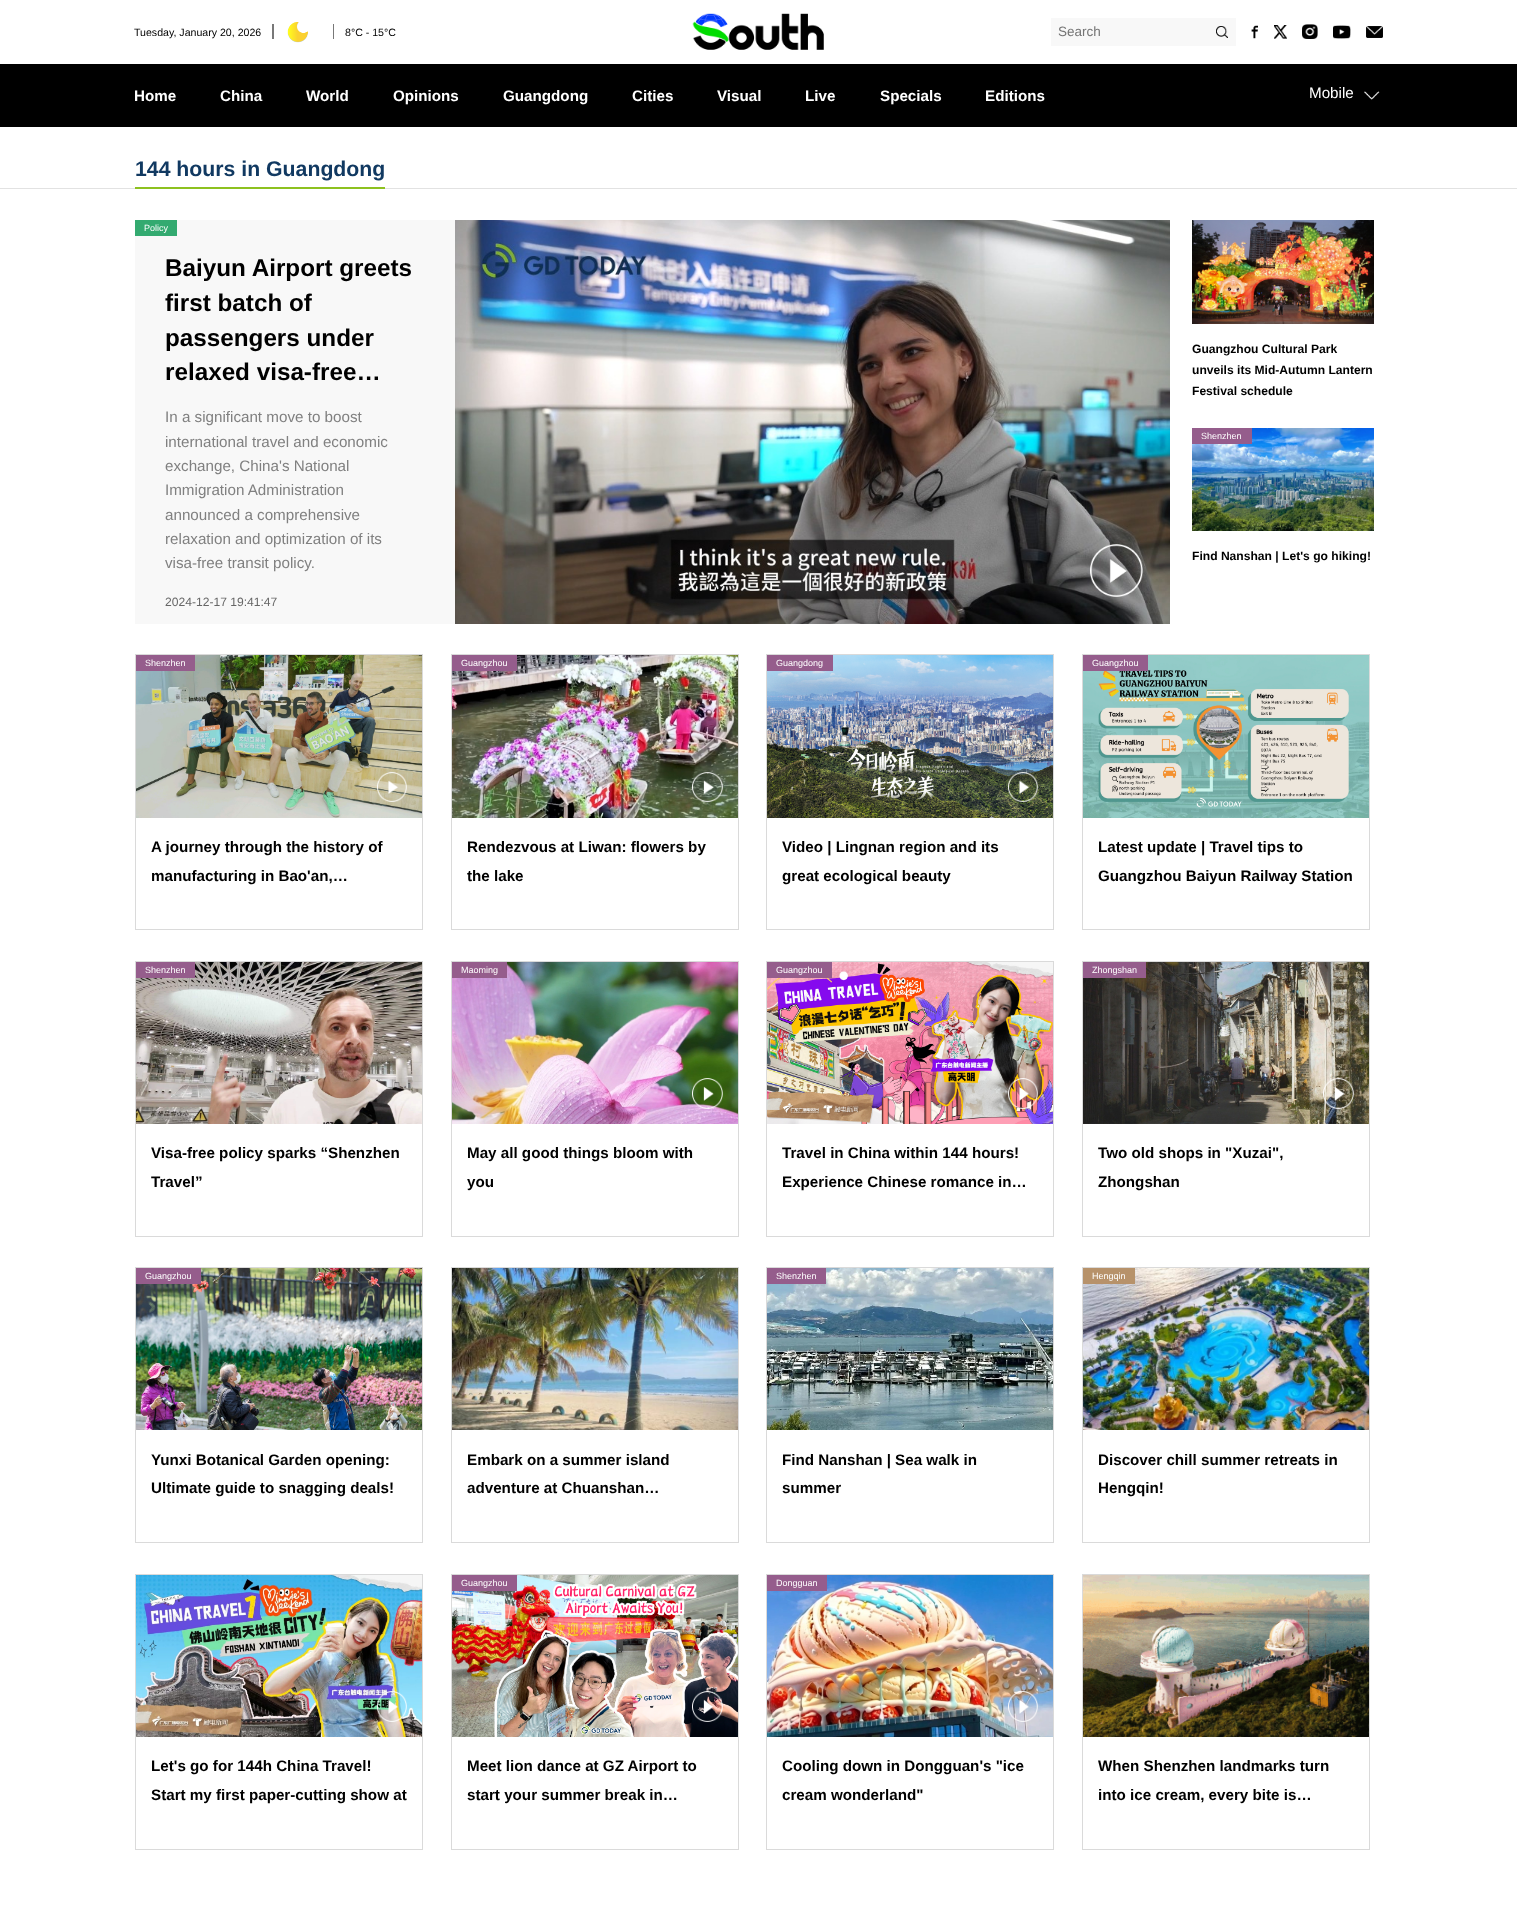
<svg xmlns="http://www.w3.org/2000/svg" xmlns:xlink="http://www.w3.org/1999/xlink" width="1517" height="1914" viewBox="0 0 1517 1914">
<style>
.cls-1{font:10.6px Liberation Sans;fill:#000000}
.cls-2{font:13.5px Liberation Sans;fill:#757575}
.cls-3{font:bold 15.2px Liberation Sans;fill:#ffffff}
.cls-4{font:15.2px Liberation Sans;fill:#ffffff}
.cls-5{font:bold 21.25px Liberation Sans;fill:#113961}
.cls-6{font:9px Liberation Sans;fill:#ffffff}
.cls-7{font:bold 24.25px Liberation Sans;fill:#000000}
.cls-8{font:15.2px Liberation Sans;fill:#808080}
.cls-9{font:12.1px Liberation Sans;fill:#666666}
.cls-10{font:bold 12.1px Liberation Sans;fill:#000000}
.cls-11{font:bold 15.2px Liberation Sans;fill:#000000}
</style>
<rect width="100%" height="100%" fill="#ffffff"/>
<rect fill="#787878" x="272" y="24" width="2" height="15"/>
<image xlink:href="image0.png" x="287" y="22" width="21" height="21"/>
<rect fill="#787878" x="333" y="24" width="1" height="15"/>
<image xlink:href="image1.png" x="692" y="13" width="132" height="37"/>
<rect fill="#f8f8f8" x="1051" y="18" width="185" height="28"/>
<image xlink:href="image2.png" x="1216" y="26" width="12" height="12"/>
<image xlink:href="image3.png" x="1251" y="25" width="7" height="14"/>
<image xlink:href="image4.png" x="1274" y="25" width="13" height="14"/>
<image xlink:href="image5.png" x="1302" y="24" width="16" height="15"/>
<image xlink:href="image6.png" x="1333" y="25" width="18" height="14"/>
<image xlink:href="image7.png" x="1366" y="26" width="17" height="12"/>
<rect fill="#000000" x="0" y="64" width="1517" height="63"/>
<image xlink:href="image8.png" x="1364" y="91" width="16" height="9"/>
<rect fill="#e2e2e2" x="0" y="188" width="1517" height="1"/>
<rect fill="#8dc11f" x="135" y="187" width="250" height="2"/>
<rect fill="#f8f8f8" x="135" y="220" width="320" height="404"/>
<rect fill="#33aa70" x="135" y="220" width="42" height="16"/>
<image xlink:href="image9.png" x="455" y="220" width="715" height="404"/>
<image xlink:href="image10.png" x="1090" y="544" width="53" height="53"/>
<image xlink:href="image11.png" x="1192" y="220" width="182" height="104"/>
<image xlink:href="image12.png" x="1192" y="428" width="182" height="103"/>
<rect fill="#955d8c" x="1192" y="428" width="60" height="16"/>
<rect fill="none" stroke="#dadada" x="135.5" y="654.5" width="287" height="275"/>
<image xlink:href="image13.png" x="136" y="655" width="286" height="163"/>
<image xlink:href="image14.png" x="377" y="772" width="30" height="30"/>
<rect fill="#955d8c" x="136" y="655" width="59" height="16"/>
<rect fill="none" stroke="#dadada" x="451.5" y="654.5" width="287" height="275"/>
<image xlink:href="image15.png" x="452" y="655" width="286" height="163"/>
<image xlink:href="image16.png" x="692" y="772" width="31" height="30"/>
<rect fill="#955d8c" x="452" y="655" width="65" height="16"/>
<rect fill="none" stroke="#dadada" x="766.5" y="654.5" width="287" height="275"/>
<image xlink:href="image17.png" x="767" y="655" width="286" height="163"/>
<image xlink:href="image18.png" x="1008" y="772" width="30" height="30"/>
<rect fill="#955d8c" x="767" y="655" width="66" height="16"/>
<rect fill="none" stroke="#dadada" x="1082.5" y="654.5" width="287" height="275"/>
<image xlink:href="image19.png" x="1083" y="655" width="286" height="163"/>
<rect fill="#955d8c" x="1083" y="655" width="65" height="16"/>
<rect fill="none" stroke="#dadada" x="135.5" y="961.5" width="287" height="275"/>
<image xlink:href="image20.png" x="136" y="962" width="286" height="162"/>
<rect fill="#955d8c" x="136" y="962" width="59" height="16"/>
<rect fill="none" stroke="#dadada" x="451.5" y="961.5" width="287" height="275"/>
<image xlink:href="image21.png" x="452" y="962" width="286" height="162"/>
<image xlink:href="image22.png" x="692" y="1078" width="31" height="31"/>
<rect fill="#955d8c" x="452" y="962" width="55" height="16"/>
<rect fill="none" stroke="#dadada" x="766.5" y="961.5" width="287" height="275"/>
<image xlink:href="image23.png" x="767" y="962" width="286" height="162"/>
<image xlink:href="image24.png" x="1008" y="1078" width="30" height="31"/>
<rect fill="#955d8c" x="767" y="962" width="65" height="16"/>
<rect fill="none" stroke="#dadada" x="1082.5" y="961.5" width="287" height="275"/>
<image xlink:href="image25.png" x="1083" y="962" width="286" height="162"/>
<image xlink:href="image26.png" x="1323" y="1078" width="31" height="31"/>
<rect fill="#955d8c" x="1083" y="962" width="63" height="16"/>
<rect fill="none" stroke="#dadada" x="135.5" y="1267.5" width="287" height="275"/>
<image xlink:href="image27.png" x="136" y="1268" width="286" height="162"/>
<rect fill="#955d8c" x="136" y="1268" width="65" height="16"/>
<rect fill="none" stroke="#dadada" x="451.5" y="1267.5" width="287" height="275"/>
<image xlink:href="image28.png" x="452" y="1268" width="286" height="162"/>
<rect fill="none" stroke="#dadada" x="766.5" y="1267.5" width="287" height="275"/>
<image xlink:href="image29.png" x="767" y="1268" width="286" height="162"/>
<rect fill="#955d8c" x="767" y="1268" width="59" height="16"/>
<rect fill="none" stroke="#dadada" x="1082.5" y="1267.5" width="287" height="275"/>
<image xlink:href="image30.png" x="1083" y="1268" width="286" height="162"/>
<rect fill="#b7926a" x="1083" y="1268" width="52" height="16"/>
<rect fill="none" stroke="#dadada" x="135.5" y="1574.5" width="287" height="275"/>
<image xlink:href="image31.png" x="136" y="1575" width="286" height="162"/>
<image xlink:href="image32.png" x="377" y="1691" width="30" height="31"/>
<rect fill="none" stroke="#dadada" x="451.5" y="1574.5" width="287" height="275"/>
<image xlink:href="image33.png" x="452" y="1575" width="286" height="162"/>
<image xlink:href="image34.png" x="692" y="1691" width="31" height="31"/>
<rect fill="#955d8c" x="452" y="1575" width="65" height="16"/>
<rect fill="none" stroke="#dadada" x="766.5" y="1574.5" width="287" height="275"/>
<image xlink:href="image35.png" x="767" y="1575" width="286" height="162"/>
<image xlink:href="image36.png" x="1008" y="1691" width="30" height="31"/>
<rect fill="#955d8c" x="767" y="1575" width="60" height="16"/>
<rect fill="none" stroke="#dadada" x="1082.5" y="1574.5" width="287" height="275"/>
<image xlink:href="image37.png" x="1083" y="1575" width="286" height="162"/>
<text class="cls-1" x="134" y="36">Tuesday, January 20, 2026</text>
<text class="cls-1" x="345" y="36">8°C - 15°C</text>
<text class="cls-2" x="1058" y="36">Search</text>
<text class="cls-3" x="134" y="101">Home</text>
<text class="cls-3" x="220" y="101">China</text>
<text class="cls-3" x="306" y="101">World</text>
<text class="cls-3" x="393" y="101">Opinions</text>
<text class="cls-3" x="503" y="101">Guangdong</text>
<text class="cls-3" x="632" y="101">Cities</text>
<text class="cls-3" x="717" y="101">Visual</text>
<text class="cls-3" x="805" y="101">Live</text>
<text class="cls-3" x="880" y="101">Specials</text>
<text class="cls-3" x="985" y="101">Editions</text>
<text class="cls-4" x="1309" y="98">Mobile</text>
<text class="cls-5" x="135" y="176">144 hours in Guangdong</text>
<text class="cls-6" x="144" y="231">Policy</text>
<text class="cls-7"><tspan x="165" y="276">Baiyun Airport greets</tspan><tspan x="165" y="311">first batch of</tspan><tspan x="165" y="346">passengers under</tspan><tspan x="165" y="380">relaxed visa-free…</tspan></text>
<text class="cls-8"><tspan x="165" y="422">In a significant move to boost</tspan><tspan x="165" y="447">international travel and economic</tspan><tspan x="165" y="471">exchange, China's National</tspan><tspan x="165" y="495">Immigration Administration</tspan><tspan x="165" y="520">announced a comprehensive</tspan><tspan x="165" y="544">relaxation and optimization of its</tspan><tspan x="165" y="568">visa-free transit policy.</tspan></text>
<text class="cls-9" x="165" y="606">2024-12-17 19:41:47</text>
<text class="cls-10"><tspan x="1192" y="353">Guangzhou Cultural Park</tspan><tspan x="1192" y="374">unveils its Mid-Autumn Lantern</tspan><tspan x="1192" y="395">Festival schedule</tspan></text>
<text class="cls-6" x="1201" y="439">Shenzhen</text>
<text class="cls-10" x="1192" y="560">Find Nanshan | Let's go hiking!</text>
<text class="cls-6" x="145" y="666">Shenzhen</text>
<text class="cls-11"><tspan x="151" y="852">A journey through the history of</tspan><tspan x="151" y="881">manufacturing in Bao'an,…</tspan></text>
<text class="cls-6" x="461" y="666">Guangzhou</text>
<text class="cls-11"><tspan x="467" y="852">Rendezvous at Liwan: flowers by</tspan><tspan x="467" y="881">the lake</tspan></text>
<text class="cls-6" x="776" y="666">Guangdong</text>
<text class="cls-11"><tspan x="782" y="852">Video | Lingnan region and its</tspan><tspan x="782" y="881">great ecological beauty</tspan></text>
<text class="cls-6" x="1092" y="666">Guangzhou</text>
<text class="cls-11"><tspan x="1098" y="852">Latest update | Travel tips to</tspan><tspan x="1098" y="881">Guangzhou Baiyun Railway Station</tspan></text>
<text class="cls-6" x="145" y="973">Shenzhen</text>
<text class="cls-11"><tspan x="151" y="1158">Visa-free policy sparks “Shenzhen</tspan><tspan x="151" y="1187">Travel”</tspan></text>
<text class="cls-6" x="461" y="973">Maoming</text>
<text class="cls-11"><tspan x="467" y="1158">May all good things bloom with</tspan><tspan x="467" y="1187">you</tspan></text>
<text class="cls-6" x="776" y="973">Guangzhou</text>
<text class="cls-11"><tspan x="782" y="1158">Travel in China within 144 hours!</tspan><tspan x="782" y="1187">Experience Chinese romance in…</tspan></text>
<text class="cls-6" x="1092" y="973">Zhongshan</text>
<text class="cls-11"><tspan x="1098" y="1158">Two old shops in "Xuzai",</tspan><tspan x="1098" y="1187">Zhongshan</tspan></text>
<text class="cls-6" x="145" y="1279">Guangzhou</text>
<text class="cls-11"><tspan x="151" y="1465">Yunxi Botanical Garden opening:</tspan><tspan x="151" y="1493">Ultimate guide to snagging deals!</tspan></text>
<text class="cls-11"><tspan x="467" y="1465">Embark on a summer island</tspan><tspan x="467" y="1493">adventure at Chuanshan…</tspan></text>
<text class="cls-6" x="776" y="1279">Shenzhen</text>
<text class="cls-11"><tspan x="782" y="1465">Find Nanshan | Sea walk in</tspan><tspan x="782" y="1493">summer</tspan></text>
<text class="cls-6" x="1092" y="1279">Hengqin</text>
<text class="cls-11"><tspan x="1098" y="1465">Discover chill summer retreats in</tspan><tspan x="1098" y="1493">Hengqin!</tspan></text>
<text class="cls-11"><tspan x="151" y="1771">Let's go for 144h China Travel!</tspan><tspan x="151" y="1800">Start my first paper-cutting show at</tspan></text>
<text class="cls-6" x="461" y="1586">Guangzhou</text>
<text class="cls-11"><tspan x="467" y="1771">Meet lion dance at GZ Airport to</tspan><tspan x="467" y="1800">start your summer break in…</tspan></text>
<text class="cls-6" x="776" y="1586">Dongguan</text>
<text class="cls-11"><tspan x="782" y="1771">Cooling down in Dongguan's "ice</tspan><tspan x="782" y="1800">cream wonderland"</tspan></text>
<text class="cls-11"><tspan x="1098" y="1771">When Shenzhen landmarks turn</tspan><tspan x="1098" y="1800">into ice cream, every bite is…</tspan></text>
</svg>
